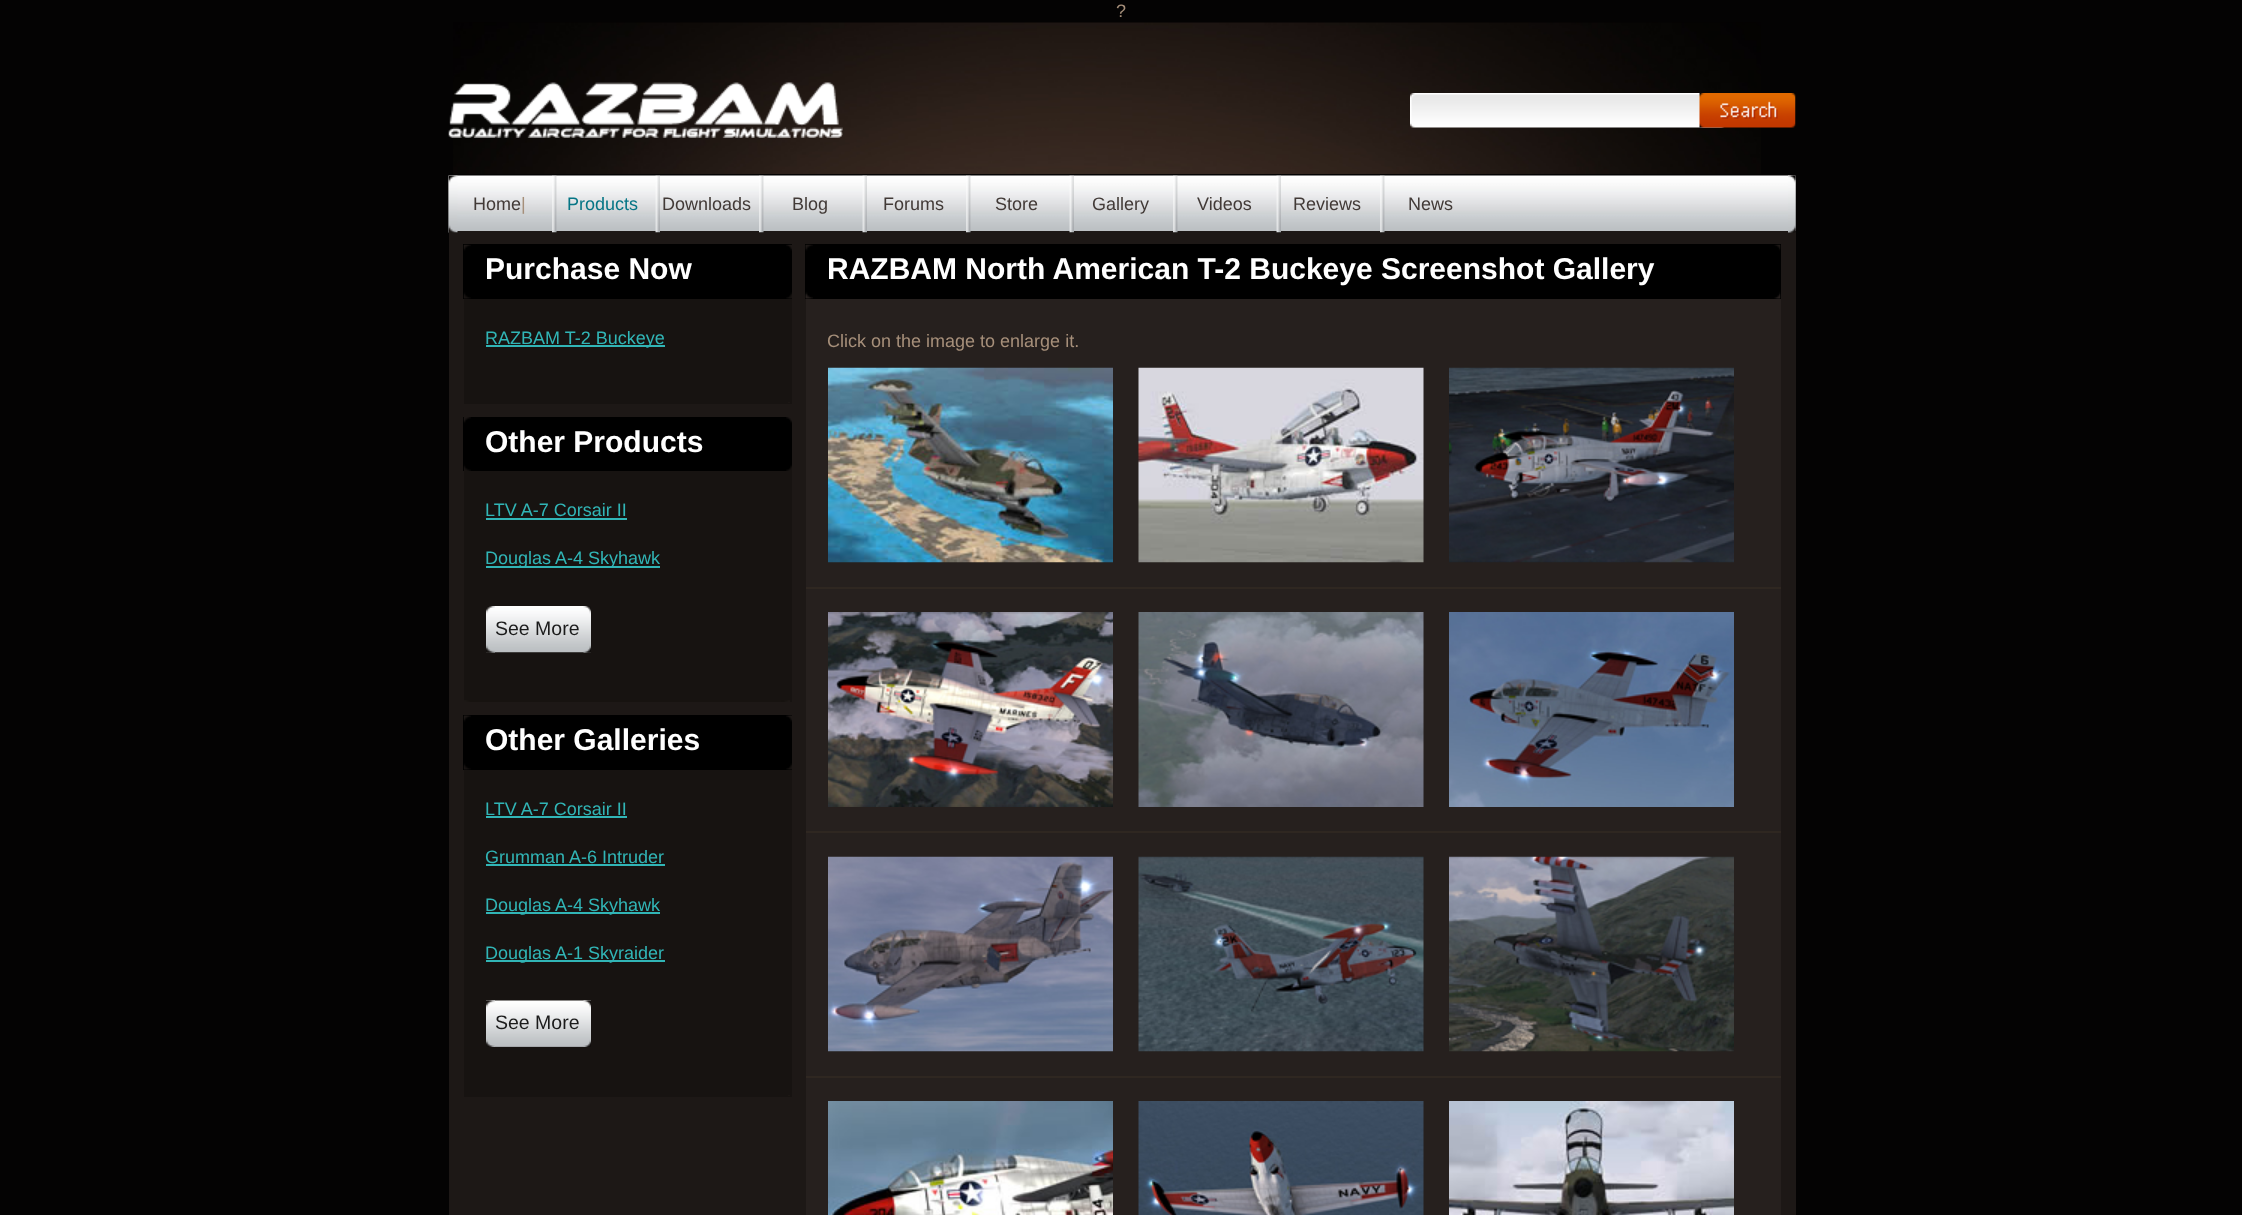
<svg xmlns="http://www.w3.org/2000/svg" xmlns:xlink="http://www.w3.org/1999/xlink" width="2242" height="1215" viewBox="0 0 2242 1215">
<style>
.cls-1{font:18px Liberation Sans;fill:#a68f7a}
.cls-2{font:18px Liberation Sans;fill:#423a37}
.cls-3{font:18px Liberation Sans;fill:#067585}
.cls-4{font:bold 30px Liberation Sans;fill:#ffffff}
.cls-5{font:18px Liberation Sans;fill:#31b5b6}
.cls-6{font:19.5px Liberation Sans;fill:#1b1b1b}
</style>
<rect width="100%" height="100%" fill="#040303"/>
<image xlink:href="image0.png" x="453" y="22" width="1308" height="152"/>
<image xlink:href="image1.png" x="448" y="82" width="395" height="56"/>
<image xlink:href="image2.png" x="1410" y="93" width="315" height="35"/>
<image xlink:href="image3.png" x="1699" y="93" width="97" height="35"/>
<image xlink:href="image4.png" x="448" y="175" width="1348" height="58"/>
<rect fill="#1d1816" x="449" y="231" width="1347" height="984"/>
<image xlink:href="image5.png" x="1788" y="175" width="8" height="58"/>
<image xlink:href="image6.png" x="448" y="175" width="10" height="58"/>
<image xlink:href="image7.png" x="552" y="175" width="5" height="58"/>
<image xlink:href="image8.png" x="655" y="175" width="5" height="58"/>
<image xlink:href="image7.png" x="759" y="175" width="5" height="58"/>
<image xlink:href="image8.png" x="862" y="175" width="5" height="58"/>
<image xlink:href="image7.png" x="966" y="175" width="5" height="58"/>
<image xlink:href="image8.png" x="1069" y="175" width="5" height="58"/>
<image xlink:href="image7.png" x="1173" y="175" width="5" height="58"/>
<image xlink:href="image8.png" x="1276" y="175" width="5" height="58"/>
<image xlink:href="image7.png" x="1380" y="175" width="5" height="58"/>
<rect fill="#171311" x="464" y="299" width="328" height="105"/>
<rect fill="#1c1714" x="788" y="402" width="2" height="1"/>
<rect fill="#000000" x="463" y="244" width="329" height="55"/>
<image xlink:href="image9.png" x="463" y="244" width="8" height="55"/>
<image xlink:href="image10.png" x="786" y="244" width="6" height="55"/>
<rect fill="#31b5b6" x="486" y="345" width="179" height="2"/>
<rect fill="#171311" x="464" y="471" width="328" height="231"/>
<image xlink:href="image11.png" x="464" y="700" width="326" height="2"/>
<rect fill="#000000" x="463" y="417" width="323" height="54"/>
<image xlink:href="image12.png" x="463" y="417" width="8" height="54"/>
<image xlink:href="image13.png" x="786" y="417" width="6" height="54"/>
<rect fill="#31b5b6" x="486" y="518" width="141" height="2"/>
<rect fill="#31b5b6" x="486" y="566" width="174" height="2"/>
<image xlink:href="image14.png" x="486" y="606" width="105" height="47"/>
<image xlink:href="image15.png" x="486" y="606" width="9" height="47"/>
<image xlink:href="image16.png" x="583" y="606" width="8" height="47"/>
<rect fill="#171311" x="464" y="770" width="328" height="327"/>
<rect fill="#1c1714" x="788" y="1095" width="2" height="1"/>
<rect fill="#000000" x="463" y="715" width="329" height="55"/>
<image xlink:href="image17.png" x="463" y="715" width="8" height="55"/>
<image xlink:href="image18.png" x="786" y="715" width="6" height="55"/>
<rect fill="#31b5b6" x="486" y="816" width="141" height="2"/>
<rect fill="#31b5b6" x="486" y="864" width="179" height="2"/>
<rect fill="#31b5b6" x="486" y="912" width="174" height="2"/>
<rect fill="#31b5b6" x="486" y="960" width="179" height="2"/>
<image xlink:href="image19.png" x="486" y="1000" width="105" height="47"/>
<image xlink:href="image20.png" x="486" y="1000" width="9" height="47"/>
<image xlink:href="image21.png" x="583" y="1000" width="8" height="47"/>
<rect fill="#26201e" x="806" y="299" width="975" height="916"/>
<rect fill="#000000" x="805" y="244" width="976" height="55"/>
<image xlink:href="image22.png" x="805" y="244" width="8" height="55"/>
<image xlink:href="image23.png" x="1774" y="244" width="7" height="55"/>
<rect fill="#2f2721" x="806" y="587" width="975" height="2"/>
<image xlink:href="image24.png" x="828" y="367" width="285" height="196"/>
<image xlink:href="image25.png" x="1138" y="367" width="286" height="196"/>
<image xlink:href="image26.png" x="1449" y="367" width="285" height="196"/>
<rect fill="#2f2721" x="806" y="831" width="975" height="2"/>
<image xlink:href="image27.png" x="828" y="612" width="285" height="195"/>
<image xlink:href="image28.png" x="1138" y="612" width="286" height="195"/>
<image xlink:href="image29.png" x="1449" y="612" width="285" height="195"/>
<rect fill="#2f2721" x="806" y="1076" width="975" height="2"/>
<image xlink:href="image30.png" x="828" y="856" width="285" height="196"/>
<image xlink:href="image31.png" x="1138" y="856" width="286" height="196"/>
<image xlink:href="image32.png" x="1449" y="856" width="285" height="196"/>
<image xlink:href="image33.png" x="828" y="1101" width="285" height="114"/>
<image xlink:href="image34.png" x="1138" y="1101" width="286" height="114"/>
<image xlink:href="image35.png" x="1449" y="1101" width="285" height="114"/>
<text class="cls-1" x="1116" y="17">?</text>
<text class="cls-2" x="473" y="210">Home</text>
<text class="cls-1" x="521" y="210">|</text>
<text class="cls-3" x="567" y="210">Products</text>
<text class="cls-2" x="662" y="210">Downloads</text>
<text class="cls-2" x="792" y="210">Blog</text>
<text class="cls-2" x="883" y="210">Forums</text>
<text class="cls-2" x="995" y="210">Store</text>
<text class="cls-2" x="1092" y="210">Gallery</text>
<text class="cls-2" x="1197" y="210">Videos</text>
<text class="cls-2" x="1293" y="210">Reviews</text>
<text class="cls-2" x="1408" y="210">News</text>
<text class="cls-4" x="485" y="279">Purchase Now</text>
<text class="cls-5" x="485" y="344">RAZBAM T-2 Buckeye</text>
<text class="cls-4" x="485" y="452">Other Products</text>
<text class="cls-5" x="485" y="516">LTV A-7 Corsair II</text>
<text class="cls-5" x="485" y="564">Douglas A-4 Skyhawk</text>
<text class="cls-6" x="495" y="635">See More</text>
<text class="cls-4" x="485" y="750">Other Galleries</text>
<text class="cls-5" x="485" y="815">LTV A-7 Corsair II</text>
<text class="cls-5" x="485" y="863">Grumman A-6 Intruder</text>
<text class="cls-5" x="485" y="911">Douglas A-4 Skyhawk</text>
<text class="cls-5" x="485" y="959">Douglas A-1 Skyraider</text>
<text class="cls-6" x="495" y="1029">See More</text>
<text class="cls-4" x="827" y="279">RAZBAM North American T-2 Buckeye Screenshot Gallery</text>
<text class="cls-1" x="827" y="347">Click on the image to enlarge it.</text>
</svg>
